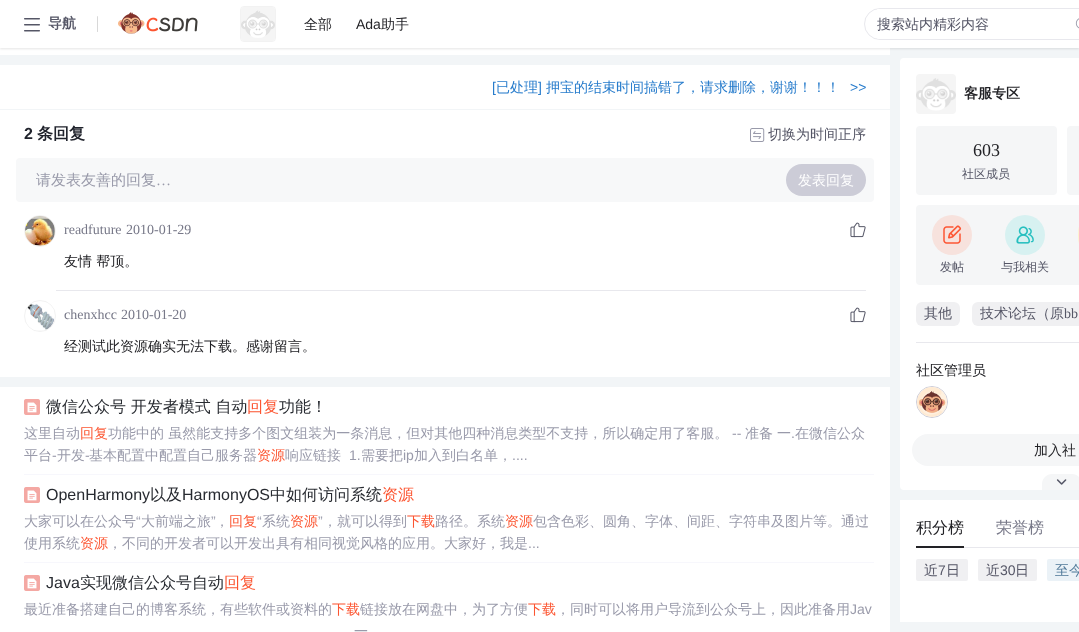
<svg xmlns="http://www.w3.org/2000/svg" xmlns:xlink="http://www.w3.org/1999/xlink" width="1079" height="632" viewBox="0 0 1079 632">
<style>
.cls-1{font:bold 14px WenQuanYi Zen Hei;fill:#555666}
.cls-2{font:500 14px WenQuanYi Zen Hei;fill:#222226}
.cls-3{font:14px Liberation Sans;fill:#222226}
.cls-4{font:500 14px WenQuanYi Zen Hei;fill:#555666}
.cls-5{font:14px Liberation Sans;fill:#277ccc}
.cls-6{font:500 14px WenQuanYi Zen Hei;fill:#277ccc}
.cls-7{font:bold 16px Liberation Sans;fill:#20232c}
.cls-8{font:bold 16px WenQuanYi Zen Hei;fill:#20232c}
.cls-9{font:500 15px WenQuanYi Zen Hei;fill:#999aaa}
.cls-10{font:15px Liberation Serif;fill:#999aaa}
.cls-11{font:500 14px WenQuanYi Zen Hei;fill:#ffffff}
.cls-12{font:14px Liberation Serif;fill:#777888}
.cls-13{font:500 16px WenQuanYi Zen Hei;fill:#282b31}
.cls-14{font:500 16px WenQuanYi Zen Hei;fill:#fc5531}
.cls-15{font:500 14px WenQuanYi Zen Hei;fill:#999aaa}
.cls-16{font:500 14px WenQuanYi Zen Hei;fill:#fc5531}
.cls-17{font:14px Liberation Sans;fill:#999aaa}
.cls-18{font:16px Liberation Sans;fill:#282b31}
.cls-19{font:bold 14px WenQuanYi Zen Hei;fill:#222226}
.cls-20{font:18px Liberation Serif;fill:#222226}
.cls-21{font:500 12px WenQuanYi Zen Hei;fill:#555666}
.cls-22{font:14px Liberation Serif;fill:#555666}
.cls-23{font:500 16px WenQuanYi Zen Hei;fill:#222226}
.cls-24{font:500 16px WenQuanYi Zen Hei;fill:#777888}
.cls-25{font:14px Liberation Sans;fill:#555666}
.cls-26{font:500 14px WenQuanYi Zen Hei;fill:#507999}
</style>
<defs>
<clipPath id="clip1"><rect x="865" y="9" width="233" height="30" rx="15"/></clipPath>
</defs>
<rect width="100%" height="100%" fill="#f2f5f7"/>
<rect fill="#ffffff" x="0" y="48" width="890" height="7"/>
<rect fill="#000000" fill-opacity="0.1" filter="blur(1px)" x="0" y="1" width="1079" height="48"/>
<rect fill="#ffffff" x="0" y="0" width="1079" height="48"/>
<image xlink:href="image0.png" x="24" y="18" width="16" height="14"/>
<rect fill="#d8d8d8" x="97" y="16" width="1" height="16" rx="0.5"/>
<image xlink:href="image1.png" x="118" y="12" width="80" height="22"/>
<rect fill="none" stroke="#f2f2f2" x="240.5" y="6.5" width="35" height="35" rx="3.5"/>
<image xlink:href="image2.png" x="241" y="7" width="34" height="34"/>
<rect fill="none" stroke="#e8e8ed" x="864.5" y="8.5" width="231" height="31" rx="15.5"/>
<g clip-path="url(#clip1)">
<rect fill="#ffffff" x="877" y="9" width="195" height="30"/>
</g>
<image xlink:href="image3.png" x="1075" y="18" width="4" height="11"/>
<rect fill="#ffffff" x="0" y="65" width="890" height="44"/>
<rect fill="#ffffff" x="0" y="110" width="890" height="267"/>
<image xlink:href="image4.png" x="750" y="128" width="15" height="14"/>
<rect fill="#f7f8f9" x="16" y="158" width="858" height="44" rx="4"/>
<rect fill="#ccccd7" x="786" y="164" width="80" height="32" rx="16"/>
<circle fill="none" stroke="#f2f2f2" cx="40" cy="231" r="15.5"/>
<image xlink:href="image5.png" x="25" y="216" width="30" height="30"/>
<image xlink:href="image6.png" x="850" y="222" width="16" height="16"/>
<rect fill="#e8e8ed" x="56" y="290" width="810" height="1"/>
<circle fill="none" stroke="#f2f2f2" cx="40" cy="316" r="15.5"/>
<image xlink:href="image7.png" x="27" y="303" width="27" height="28"/>
<image xlink:href="image6.png" x="850" y="307" width="16" height="16"/>
<rect fill="#ffffff" x="0" y="387" width="890" height="245"/>
<rect fill="#f7f7fc" x="24" y="474" width="850" height="1"/>
<image xlink:href="image8.png" x="24" y="399" width="16" height="16"/>
<rect fill="#f7f7fc" x="24" y="562" width="850" height="1"/>
<image xlink:href="image8.png" x="24" y="487" width="16" height="16"/>
<image xlink:href="image8.png" x="24" y="575" width="16" height="16"/>
<rect fill="#ffffff" x="900" y="58" width="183" height="432" rx="4"/>
<image xlink:href="image9.png" x="916" y="74" width="40" height="40"/>
<rect fill="#f5f6f7" x="916" y="126" width="141" height="69" rx="4"/>
<rect fill="#f5f6f7" x="1067" y="126" width="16" height="69" rx="4"/>
<rect fill="#f5f6f7" x="916" y="205" width="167" height="80" rx="4"/>
<rect fill="#fdf2ce" x="1078" y="215" width="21" height="40" rx="20"/>
<circle fill="#f7e2dd" cx="952" cy="235" r="20"/>
<image xlink:href="image10.png" x="943" y="225" width="19" height="19"/>
<circle fill="#d7f1f1" cx="1025" cy="235" r="20"/>
<image xlink:href="image11.png" x="1016" y="226" width="18" height="18"/>
<rect fill="#f0f0f2" x="916" y="302" width="44" height="24" rx="6"/>
<rect fill="#f0f0f2" x="972" y="302" width="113" height="24" rx="6"/>
<rect fill="#e8e8ed" x="916" y="342" width="163" height="1"/>
<circle fill="none" stroke="#ccccd8" cx="932" cy="402" r="15.5"/>
<image xlink:href="image12.png" x="917" y="387" width="30" height="30"/>
<rect fill="#f5f6f7" x="912" y="434" width="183" height="32" rx="16"/>
<path fill="#f5f6f7" d="M1052 474H1072C1077.5 474 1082 478.5 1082 484V490H1042V484C1042 478.5 1046.5 474 1052 474Z"/>
<image xlink:href="image13.png" x="1056" y="479" width="11" height="6"/>
<rect fill="#ffffff" x="900" y="500" width="179" height="122"/>
<rect fill="#222226" x="916" y="546" width="48" height="2"/>
<rect fill="#e8e8ed" x="964" y="547" width="115" height="1"/>
<rect fill="#f0f0f2" x="916" y="559" width="52" height="22" rx="2"/>
<rect fill="#f0f0f2" x="978" y="559" width="59" height="22" rx="2"/>
<rect fill="#ebf2f7" x="1047" y="559" width="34" height="22" rx="2"/>
<text class="cls-1" x="48" y="28">导航</text>
<text class="cls-2" x="304" y="29">全部</text>
<text class="cls-3" x="356" y="29">Ada</text>
<text class="cls-2" x="381" y="29">助手</text>
<text class="cls-4" x="877" y="29">搜索站内精彩内容</text>
<text class="cls-5" x="492" y="92">[</text>
<text class="cls-6" x="496" y="92">已处理</text>
<text class="cls-5" x="538" y="92">]</text>
<text class="cls-6" x="546" y="92">押宝的结束时间搞错了，请求删除，谢谢！！！</text>
<text class="cls-5" x="850" y="92">&gt;&gt;</text>
<text class="cls-7" x="24" y="139">2</text>
<text class="cls-8" x="37" y="139">条回复</text>
<text class="cls-4" x="768" y="139">切换为时间正序</text>
<text class="cls-9" x="36" y="185">请发表友善的回复</text>
<text class="cls-10" x="156" y="185">…</text>
<text class="cls-11" x="798" y="185">发表回复</text>
<text class="cls-12" x="64" y="234">readfuture</text>
<text class="cls-12" x="126" y="234">2010-01-29</text>
<text class="cls-2" x="64" y="266">友情 帮顶。</text>
<text class="cls-12" x="64" y="319">chenxhcc</text>
<text class="cls-12" x="121" y="319">2010-01-20</text>
<text class="cls-2" x="64" y="351">经测试此资源确实无法下载。感谢留言。</text>
<text class="cls-13" x="46" y="412">微信公众号 开发者模式 自动</text>
<text class="cls-14" x="247" y="412">回复</text>
<text class="cls-13" x="279" y="412">功能！</text>
<text class="cls-15" x="24" y="438">这里自动</text>
<text class="cls-16" x="80" y="438">回复</text>
<text class="cls-15" x="108" y="438">功能中的 虽然能支持多个图文组装为一条消息，但对其他四种消息类型不支持，所以确定用了客服。</text>
<text class="cls-17" x="732" y="438">--</text>
<text class="cls-15" x="745" y="438">准备</text>
<text class="cls-15" x="777" y="438">一</text>
<text class="cls-15" x="795" y="438">在微信公众</text>
<text class="cls-17" x="791" y="438">.</text>
<text class="cls-15" x="24" y="460">平台</text>
<text class="cls-17" x="52" y="460">-</text>
<text class="cls-15" x="57" y="460">开发</text>
<text class="cls-17" x="85" y="460">-</text>
<text class="cls-15" x="89" y="460">基本配置中配置自己服务器</text>
<text class="cls-16" x="257" y="460">资源</text>
<text class="cls-15" x="285" y="460">响应链接</text>
<text class="cls-17" x="349" y="460">1.</text>
<text class="cls-15" x="361" y="460">需要把</text>
<text class="cls-17" x="403" y="460">ip</text>
<text class="cls-15" x="414" y="460">加入到白名单，</text>
<text class="cls-17" x="512" y="460">....</text>
<text class="cls-18" x="46" y="500">OpenHarmony</text>
<text class="cls-13" x="150" y="500">以及</text>
<text class="cls-18" x="182" y="500">HarmonyOS</text>
<text class="cls-13" x="270" y="500">中如何访问系统</text>
<text class="cls-14" x="382" y="500">资源</text>
<text class="cls-15" x="24" y="526">大家可以在公众号</text>
<text class="cls-17" x="136" y="526">“</text>
<text class="cls-15" x="141" y="526">大前端之旅</text>
<text class="cls-17" x="211" y="526">”</text>
<text class="cls-16" x="229" y="526">回复</text>
<text class="cls-17" x="257" y="526">“</text>
<text class="cls-15" x="262" y="526">系统</text>
<text class="cls-16" x="290" y="526">资源</text>
<text class="cls-17" x="318" y="526">”</text>
<text class="cls-15" x="323" y="526">，就可以得到</text>
<text class="cls-16" x="407" y="526">下载</text>
<text class="cls-15" x="435" y="526">路径。系统</text>
<text class="cls-16" x="505" y="526">资源</text>
<text class="cls-15" x="533" y="526">包含色彩、圆角、字体、间距、字符串及图片等。通过</text>
<text class="cls-15" x="215" y="526">，</text>
<text class="cls-15" x="24" y="548">使用系统</text>
<text class="cls-16" x="80" y="548">资源</text>
<text class="cls-15" x="108" y="548">，不同的开发者可以开发出具有相同视觉风格的应用。大家好，我是</text>
<text class="cls-17" x="528" y="548">...</text>
<text class="cls-18" x="46" y="588">Java</text>
<text class="cls-13" x="80" y="588">实现微信公众号自动</text>
<text class="cls-14" x="224" y="588">回复</text>
<text class="cls-15" x="24" y="614">最近准备搭建自己的博客系统，有些软件或资料的</text>
<text class="cls-16" x="332" y="614">下载</text>
<text class="cls-15" x="360" y="614">链接放在网盘中，为了方便</text>
<text class="cls-16" x="528" y="614">下载</text>
<text class="cls-15" x="556" y="614">，同时可以将用户导流到公众号上，因此准备用</text>
<text class="cls-17" x="850" y="614">Jav</text>
<text class="cls-15" x="354" y="636">一</text>
<text class="cls-19" x="964" y="98">客服专区</text>
<text class="cls-20" x="973" y="156">603</text>
<text class="cls-21" x="962" y="178">社区成员</text>
<text class="cls-21" x="940" y="271">发帖</text>
<text class="cls-21" x="1001" y="271">与我相关</text>
<text class="cls-4" x="924" y="318">其他</text>
<text class="cls-4" x="980" y="318">技术论坛（原</text>
<text class="cls-22" x="1064" y="318">bb</text>
<text class="cls-2" x="916" y="375">社区管理员</text>
<text class="cls-2" x="1034" y="455">加入社</text>
<text class="cls-23" x="916" y="533">积分榜</text>
<text class="cls-24" x="996" y="533">荣誉榜</text>
<text class="cls-4" x="924" y="575">近</text>
<text class="cls-25" x="938" y="575">7</text>
<text class="cls-4" x="946" y="575">日</text>
<text class="cls-4" x="986" y="575">近</text>
<text class="cls-25" x="1000" y="575">30</text>
<text class="cls-4" x="1015" y="575">日</text>
<text class="cls-26" x="1055" y="575">至今</text>
</svg>
